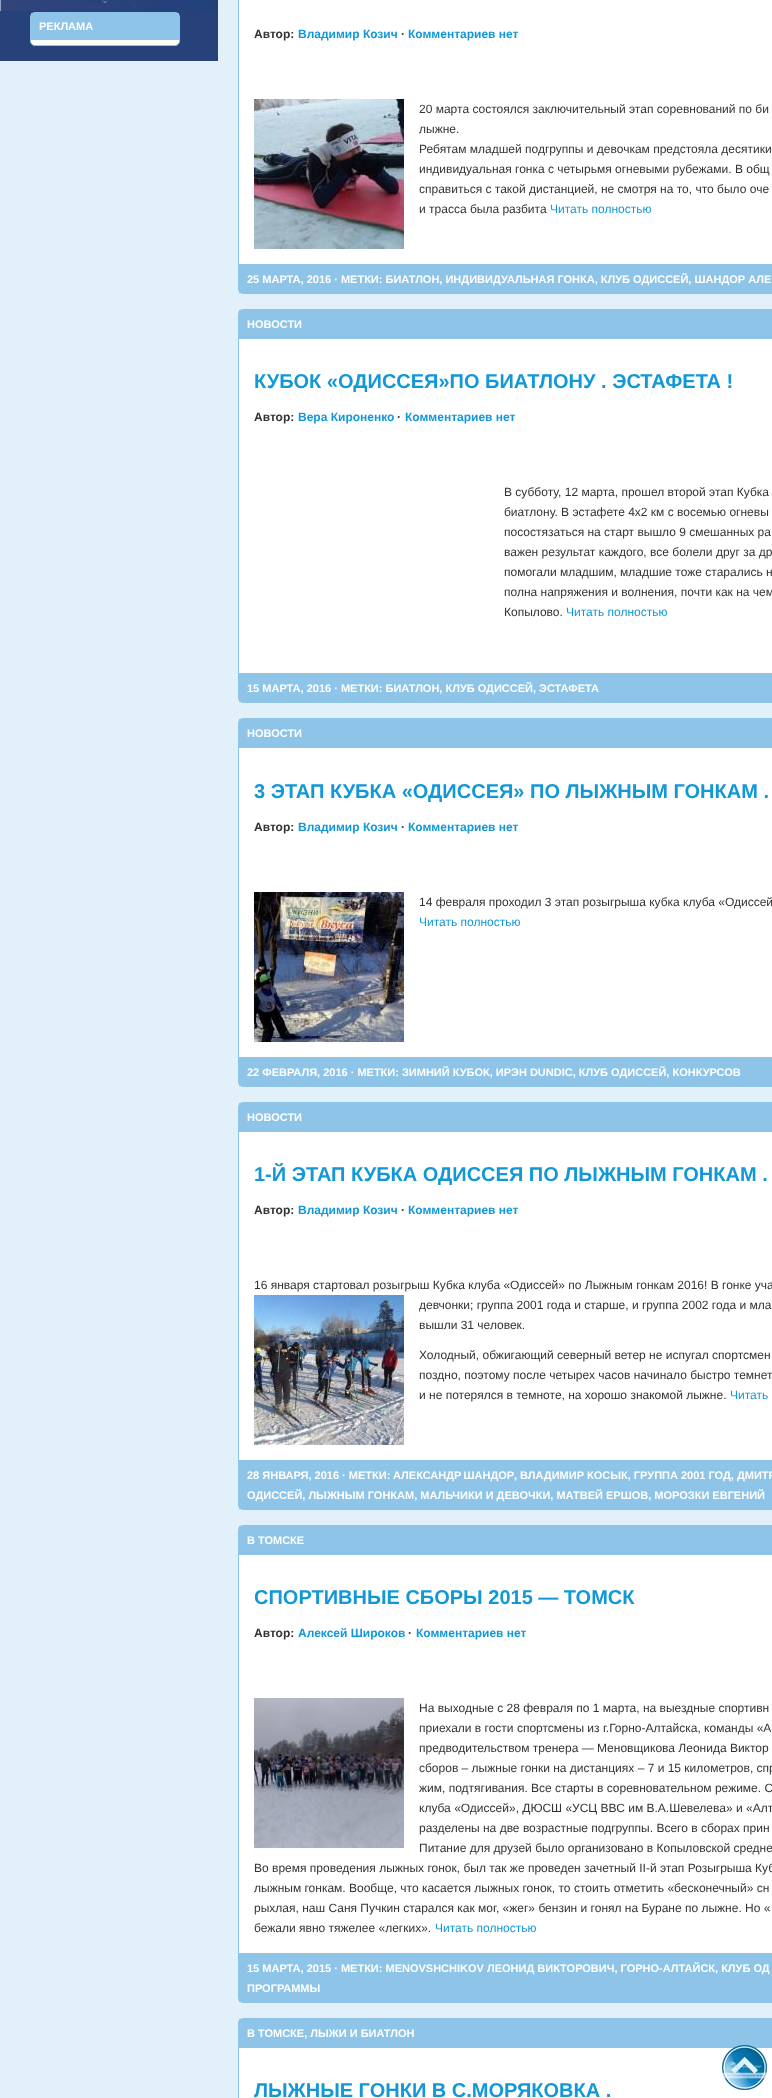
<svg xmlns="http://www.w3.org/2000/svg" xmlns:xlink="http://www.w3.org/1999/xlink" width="772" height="2098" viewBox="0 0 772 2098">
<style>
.cls-1{font:bold 11px Liberation Sans;fill:#ffffff}
.cls-2{font:bold 12px Liberation Sans;fill:#333333}
.cls-3{font:bold 12px Liberation Sans;fill:#1298d7}
.cls-4{font:12px Liberation Sans;fill:#333333}
.cls-5{font:12px Liberation Sans;fill:#1298d7}
.cls-6{font:bold 20px Liberation Sans;fill:#1298d7}
</style>
<rect width="100%" height="100%" fill="#e1f0f9"/>
<rect fill="#27417a" x="0" y="11" width="218" height="50"/>
<image xlink:href="image0.png" x="0" y="0" width="218" height="11"/>
<rect fill="#ffffff" stroke="#8ec4e8" x="30.5" y="12.5" width="149" height="33" rx="4.5"/>
<rect fill="#8ec4e8" x="31" y="13" width="148" height="27"/>
<rect fill="#ffffff" stroke="#8ec4e8" x="238.5" y="-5.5" width="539" height="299" rx="4.5"/>
<image xlink:href="image1.png" x="254" y="99" width="150" height="150"/>
<rect fill="#8ec4e8" x="239" y="264" width="533" height="29"/>
<rect fill="#ffffff" stroke="#8ec4e8" x="238.5" y="309.5" width="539" height="393" rx="4.5"/>
<rect fill="#8ec4e8" x="239" y="310" width="533" height="29"/>
<rect fill="#8ec4e8" x="239" y="673" width="533" height="29"/>
<rect fill="#ffffff" stroke="#8ec4e8" x="238.5" y="718.5" width="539" height="368" rx="4.5"/>
<rect fill="#8ec4e8" x="239" y="719" width="533" height="29"/>
<image xlink:href="image2.png" x="254" y="892" width="150" height="150"/>
<rect fill="#8ec4e8" x="239" y="1057" width="533" height="29"/>
<rect fill="#ffffff" stroke="#8ec4e8" x="238.5" y="1102.5" width="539" height="407" rx="4.5"/>
<rect fill="#8ec4e8" x="239" y="1103" width="533" height="29"/>
<image xlink:href="image3.png" x="254" y="1295" width="150" height="150"/>
<rect fill="#8ec4e8" x="239" y="1460" width="533" height="49"/>
<rect fill="#ffffff" stroke="#8ec4e8" x="238.5" y="1525.5" width="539" height="477" rx="4.5"/>
<rect fill="#8ec4e8" x="239" y="1526" width="533" height="29"/>
<image xlink:href="image4.png" x="254" y="1698" width="150" height="150"/>
<rect fill="#8ec4e8" x="239" y="1953" width="533" height="49"/>
<rect fill="#ffffff" stroke="#8ec4e8" x="238.5" y="2018.5" width="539" height="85" rx="4.5"/>
<rect fill="#8ec4e8" x="239" y="2019" width="533" height="29"/>
<image xlink:href="image5.png" x="722" y="2045" width="45" height="45"/>
<text class="cls-1" x="39" y="30">РЕКЛАМА</text>
<text class="cls-2" x="254" y="38">Автор:</text>
<text class="cls-3" x="298" y="38">Владимир Козич</text>
<text class="cls-2" x="401" y="38">·</text>
<text class="cls-3" x="408" y="38">Комментариев нет</text>
<text class="cls-4"><tspan x="419" y="113">20 марта состоялся заключительный этап соревнований по би</tspan><tspan x="419" y="133">лыжне.</tspan><tspan x="419" y="153">Ребятам младшей подгруппы и девочкам предстояла десятики</tspan><tspan x="419" y="173">индивидуальная гонка с четырьмя огневыми рубежами. В общ</tspan><tspan x="419" y="193">справиться с такой дистанцией, не смотря на то, что было оче</tspan><tspan x="419" y="213">и трасса была разбита</tspan></text>
<text class="cls-5" x="550" y="213">Читать полностью</text>
<text class="cls-1" x="247" y="283">25 МАРТА, 2016 · МЕТКИ: БИАТЛОН, ИНДИВИДУАЛЬНАЯ ГОНКА, КЛУБ ОДИССЕЙ, ШАНДОР АЛЕ</text>
<text class="cls-1" x="247" y="328">НОВОСТИ</text>
<text class="cls-6" x="254" y="388">КУБОК «ОДИССЕЯ»ПО БИАТЛОНУ . ЭСТАФЕТА !</text>
<text class="cls-2" x="254" y="421">Автор:</text>
<text class="cls-3" x="298" y="421">Вера Кироненко</text>
<text class="cls-2" x="397" y="421">·</text>
<text class="cls-3" x="405" y="421">Комментариев нет</text>
<text class="cls-4"><tspan x="504" y="496">В субботу, 12 марта, прошел второй этап Кубка</tspan><tspan x="504" y="516">биатлону. В эстафете 4х2 км с восемью огневы</tspan><tspan x="504" y="536">посостязаться на старт вышло 9 смешанных ра</tspan><tspan x="504" y="556">важен результат каждого, все болели друг за др</tspan><tspan x="504" y="576">помогали младшим, младшие тоже старались н</tspan><tspan x="504" y="596">полна напряжения и волнения, почти как на чем</tspan><tspan x="504" y="616">Копылово.</tspan></text>
<text class="cls-5" x="566" y="616">Читать полностью</text>
<text class="cls-1" x="247" y="692">15 МАРТА, 2016 · МЕТКИ: БИАТЛОН, КЛУБ ОДИССЕЙ, ЭСТАФЕТА</text>
<text class="cls-1" x="247" y="737">НОВОСТИ</text>
<text class="cls-6" x="254" y="798">3 ЭТАП КУБКА «ОДИССЕЯ» ПО ЛЫЖНЫМ ГОНКАМ .</text>
<text class="cls-2" x="254" y="831">Автор:</text>
<text class="cls-3" x="298" y="831">Владимир Козич</text>
<text class="cls-2" x="401" y="831">·</text>
<text class="cls-3" x="408" y="831">Комментариев нет</text>
<text class="cls-4" x="419" y="906">14 февраля проходил 3 этап розыгрыша кубка клуба «Одиссей</text>
<text class="cls-5" x="419" y="926">Читать полностью</text>
<text class="cls-1" x="247" y="1076">22 ФЕВРАЛЯ, 2016 · МЕТКИ: ЗИМНИЙ КУБОК, ИРЭН DUNDIC, КЛУБ ОДИССЕЙ, КОНКУРСОВ</text>
<text class="cls-1" x="247" y="1121">НОВОСТИ</text>
<text class="cls-6" x="254" y="1181">1-Й ЭТАП КУБКА ОДИССЕЯ ПО ЛЫЖНЫМ ГОНКАМ .</text>
<text class="cls-2" x="254" y="1214">Автор:</text>
<text class="cls-3" x="298" y="1214">Владимир Козич</text>
<text class="cls-2" x="401" y="1214">·</text>
<text class="cls-3" x="408" y="1214">Комментариев нет</text>
<text class="cls-4" x="254" y="1289">16 января стартовал розыгрыш Кубка клуба «Одиссей» по Лыжным гонкам 2016! В гонке уча</text>
<text class="cls-4"><tspan x="419" y="1309">девчонки; группа 2001 года и старше, и группа 2002 года и мла</tspan><tspan x="419" y="1329">вышли 31 человек.</tspan></text>
<text class="cls-4"><tspan x="419" y="1359">Холодный, обжигающий северный ветер не испугал спортсмен</tspan><tspan x="419" y="1379">поздно, поэтому после четырех часов начинало быстро темнет</tspan><tspan x="419" y="1399">и не потерялся в темноте, на хорошо знакомой лыжне.</tspan></text>
<text class="cls-5" x="730" y="1399">Читать</text>
<text class="cls-1" x="247" y="1479">28 ЯНВАРЯ, 2016 · МЕТКИ:</text>
<text class="cls-1" x="393" y="1479" word-spacing="-1">АЛЕКСАНДР ШАНДОР</text>
<text class="cls-1" x="514" y="1479">, ВЛАДИМИР КОСЫК, ГРУППА 2001 ГОД, ДМИТР</text>
<text class="cls-1" x="247" y="1499">ОДИССЕЙ, ЛЫЖНЫМ ГОНКАМ, МАЛЬЧИКИ И ДЕВОЧКИ, МАТВЕЙ ЕРШОВ, МОРОЗКИ ЕВГЕНИЙ</text>
<text class="cls-1" x="247" y="1544">В ТОМСКЕ</text>
<text class="cls-6" x="254" y="1604">СПОРТИВНЫЕ СБОРЫ 2015 — ТОМСК</text>
<text class="cls-2" x="254" y="1637">Автор:</text>
<text class="cls-3" x="298" y="1637">Алексей Широков</text>
<text class="cls-2" x="408" y="1637">·</text>
<text class="cls-3" x="416" y="1637">Комментариев нет</text>
<text class="cls-4"><tspan x="419" y="1712">На выходные с 28 февраля по 1 марта, на выездные спортивн</tspan><tspan x="419" y="1732">приехали в гости спортсмены из г.Горно-Алтайска, команды «А</tspan><tspan x="419" y="1752">предводительством тренера — Меновщикова Леонида Виктор</tspan><tspan x="419" y="1772">сборов – лыжные гонки на дистанциях – 7 и 15 километров, спр</tspan><tspan x="419" y="1792">жим, подтягивания. Все старты в соревновательном режиме. С</tspan><tspan x="419" y="1812">клуба «Одиссей», ДЮСШ «УСЦ ВВС им В.А.Шевелева» и «Алт</tspan><tspan x="419" y="1832">разделены на две возрастные подгруппы. Всего в сборах прин</tspan><tspan x="419" y="1852">Питание для друзей было организовано в Копыловской средне</tspan></text>
<text class="cls-4"><tspan x="254" y="1872">Во время проведения лыжных гонок, был так же проведен зачетный II-й этап Розыгрыша Куб</tspan><tspan x="254" y="1892">лыжным гонкам. Вообще, что касается лыжных гонок, то стоить отметить «бесконечный» сн</tspan><tspan x="254" y="1912">рыхлая, наш Саня Пучкин старался как мог, «жег» бензин и гонял на Буране по лыжне. Но «</tspan><tspan x="254" y="1932">бежали явно тяжелее «легких».</tspan></text>
<text class="cls-5" x="435" y="1932">Читать полностью</text>
<text class="cls-1"><tspan x="247" y="1972">15 МАРТА, 2015 · МЕТКИ: MENOVSHCHIKOV ЛЕОНИД ВИКТОРОВИЧ, ГОРНО-АЛТАЙСК, КЛУБ ОД</tspan><tspan x="247" y="1992">ПРОГРАММЫ</tspan></text>
<text class="cls-1" x="247" y="2037">В ТОМСКЕ, ЛЫЖИ И БИАТЛОН</text>
<text class="cls-6" x="254" y="2097">ЛЫЖНЫЕ ГОНКИ В С.МОРЯКОВКА .</text>
</svg>
